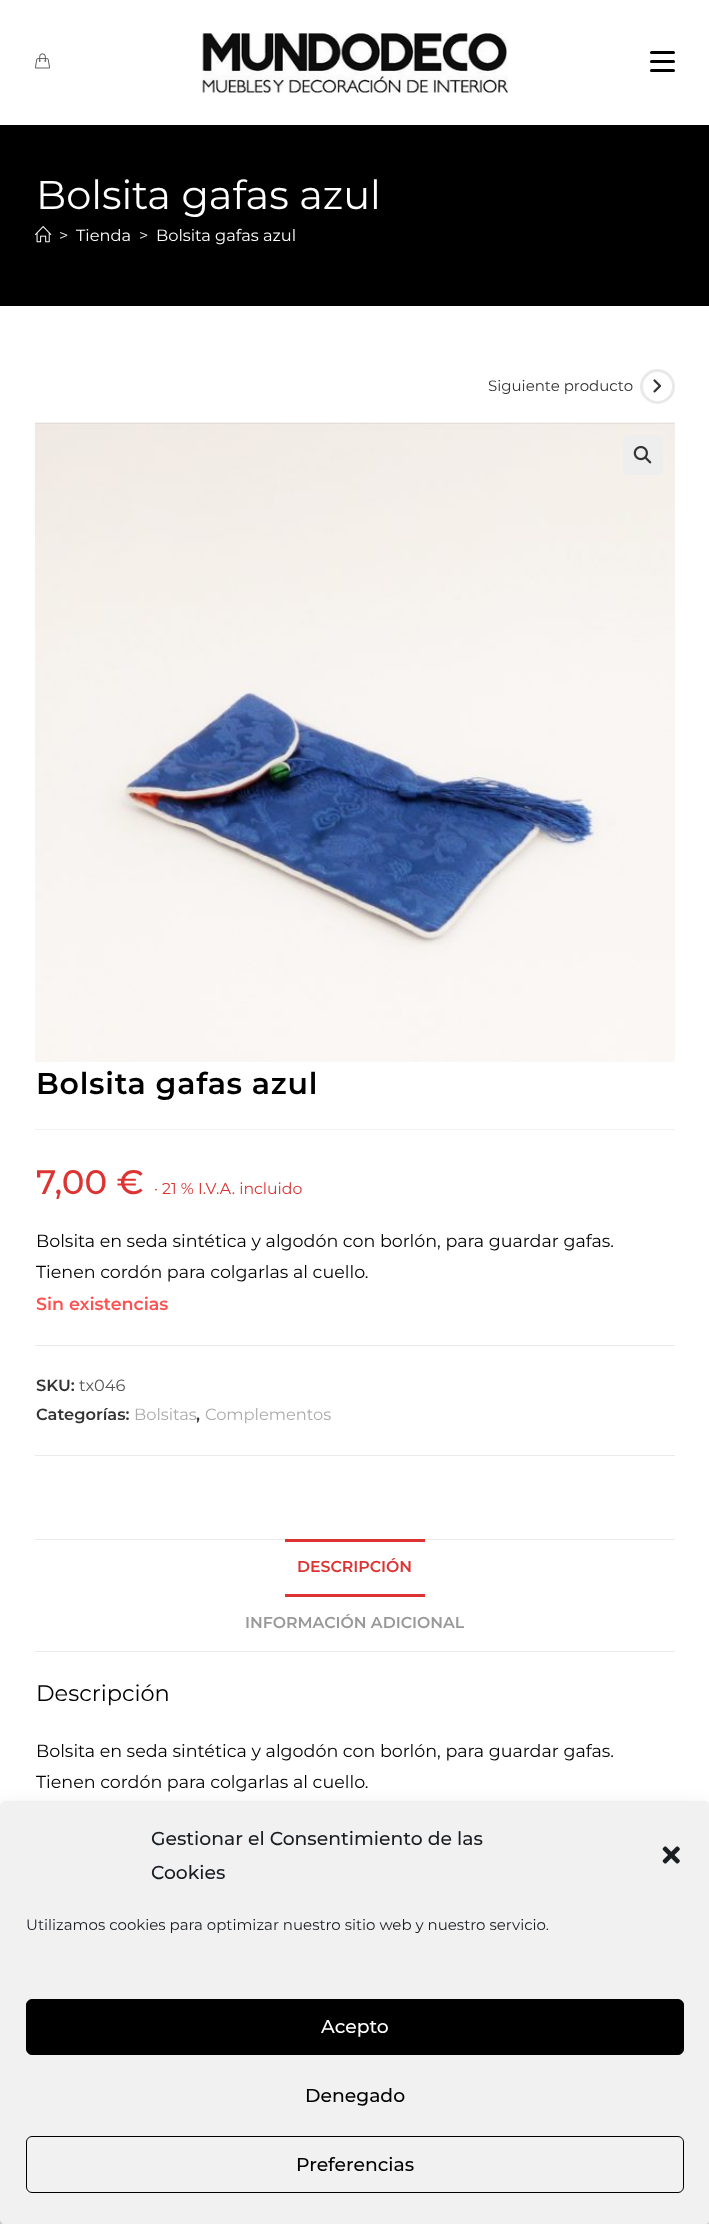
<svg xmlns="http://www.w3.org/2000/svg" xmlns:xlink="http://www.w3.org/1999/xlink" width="709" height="2224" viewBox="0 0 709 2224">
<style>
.cls-1{font:40px Montserrat;fill:#ffffff}
.cls-2{font:16.25px Montserrat;fill:#efefef}
.cls-3{font:16.25px Montserrat;fill:#ffffff}
.cls-4{font:15px Montserrat;fill:#333333}
.cls-5{font:600 30px Montserrat;letter-spacing:0.75px;fill:#000000}
.cls-6{font:500 34px Montserrat;fill:#dd3333}
.cls-7{font:15.75px Montserrat;fill:#dd3333}
.cls-8{font:17.5px Montserrat;fill:#000000}
.cls-9{font:600 17.5px Montserrat;fill:#fe5252}
.cls-10{font:600 16.25px Montserrat;fill:#333333}
.cls-11{font:16.25px Montserrat;fill:#555555}
.cls-12{font:16.25px Montserrat;fill:#ababab}
.cls-13{font:600 15.75px Montserrat;fill:#dd3333}
.cls-14{font:600 15.75px Montserrat;fill:#999999}
.cls-15{font:22.5px Montserrat;fill:#000000}
.cls-16{font:500 18.75px Montserrat;fill:#191e23}
.cls-17{font:15px Montserrat;fill:#191e23}
.cls-18{font:500 18.75px Montserrat;fill:#ffffff}
.cls-19{font:500 18.75px Montserrat;fill:#000000}
</style>
<rect width="100%" height="100%" fill="#ffffff"/>
<image xlink:href="image0.png" x="35" y="53" width="15" height="16"/>
<image xlink:href="image1.png" x="202" y="33" width="306" height="60"/>
<rect fill="#000000" x="650" y="69" width="25" height="3" rx="1.5"/>
<rect fill="#000000" x="650" y="51" width="25" height="3" rx="1.5"/>
<rect fill="#000000" x="650" y="60" width="25" height="3" rx="1.5"/>
<rect fill="#000000" x="0" y="125" width="709" height="181"/>
<image xlink:href="image2.png" x="35" y="226" width="17" height="17"/>
<circle fill="none" stroke="#e9e9e9" stroke-width="3" cx="657.5" cy="386.5" r="16"/>
<image xlink:href="image3.png" x="653" y="379" width="9" height="14"/>
<image xlink:href="image4.png" x="35" y="422" width="640" height="640"/>
<rect fill="#eeeeee" x="623" y="435" width="40" height="40" rx="4"/>
<image xlink:href="image5.png" x="633" y="445" width="19" height="19"/>
<rect fill="#f1f1f1" x="35" y="1129" width="640" height="1"/>
<rect fill="#eaeaea" x="35" y="1345" width="640" height="1"/>
<rect fill="#eaeaea" x="35" y="1455" width="640" height="1"/>
<rect fill="#eaeaea" x="35" y="1539" width="640" height="1"/>
<rect fill="#eaeaea" x="35" y="1651" width="640" height="1"/>
<rect fill="#dd3333" x="285" y="1539" width="140" height="3"/>
<rect fill="#dd3333" x="285" y="1594" width="140" height="3"/>
<rect fill="#000000" fill-opacity="0.23" filter="blur(4px)" x="0" y="1809" width="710" height="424" rx="6"/>
<rect fill="#000000" fill-opacity="0.19" filter="blur(12.5px)" x="0" y="1814" width="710" height="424" rx="6"/>
<rect fill="#f1f1f1" stroke="#f1f1f1" x="0.5" y="1801.5" width="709" height="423" rx="5.5"/>
<image xlink:href="image6.png" x="662" y="1846" width="18" height="18"/>
<rect fill="#000000" stroke="#000000" x="26.5" y="1999.5" width="657" height="55" rx="5.5"/>
<rect fill="none" stroke="#000000" x="26.5" y="2136.5" width="657" height="56" rx="5.5"/>
<text class="cls-1" x="36" y="209">Bolsita gafas azul</text>
<text class="cls-2" x="59" y="241">&gt;</text>
<text class="cls-3" x="76" y="241">Tienda</text>
<text class="cls-2" x="139" y="241">&gt;</text>
<text class="cls-3" x="156" y="241">Bolsita gafas azul</text>
<text class="cls-4" x="488" y="391">Siguiente producto</text>
<text class="cls-5" x="36" y="1094">Bolsita gafas azul</text>
<text class="cls-6" x="36" y="1194">7,00 €</text>
<text class="cls-7" x="154" y="1194">· 21 % I.V.A. incluido</text>
<text class="cls-8"><tspan x="36" y="1247">Bolsita en seda sintética y algodón con borlón, para guardar gafas.</tspan><tspan x="36" y="1278">Tienen cordón para colgarlas al cuello.</tspan></text>
<text class="cls-9" x="36" y="1310">Sin existencias</text>
<text class="cls-10" x="36" y="1391">SKU:</text>
<text class="cls-11" x="79" y="1391">tx046</text>
<text class="cls-10" x="36" y="1420">Categorías:</text>
<text class="cls-12" x="134" y="1420">Bolsitas</text>
<text class="cls-10" x="196" y="1420">,</text>
<text class="cls-12" x="205" y="1420">Complementos</text>
<text class="cls-13" x="297" y="1572">DESCRIPCIÓN</text>
<text class="cls-14" x="245" y="1628">INFORMACIÓN ADICIONAL</text>
<text class="cls-15" x="36" y="1701">Descripción</text>
<text class="cls-8"><tspan x="36" y="1757">Bolsita en seda sintética y algodón con borlón, para guardar gafas.</tspan><tspan x="36" y="1788">Tienen cordón para colgarlas al cuello.</tspan></text>
<text class="cls-16"><tspan x="151" y="1845">Gestionar el Consentimiento de las</tspan><tspan x="151" y="1879">Cookies</tspan></text>
<text class="cls-17" x="26" y="1930">Utilizamos cookies para optimizar nuestro sitio web y nuestro servicio.</text>
<text class="cls-18" x="321" y="2033">Acepto</text>
<text class="cls-19" x="305" y="2102">Denegado</text>
<text class="cls-19" x="296" y="2171">Preferencias</text>
</svg>
